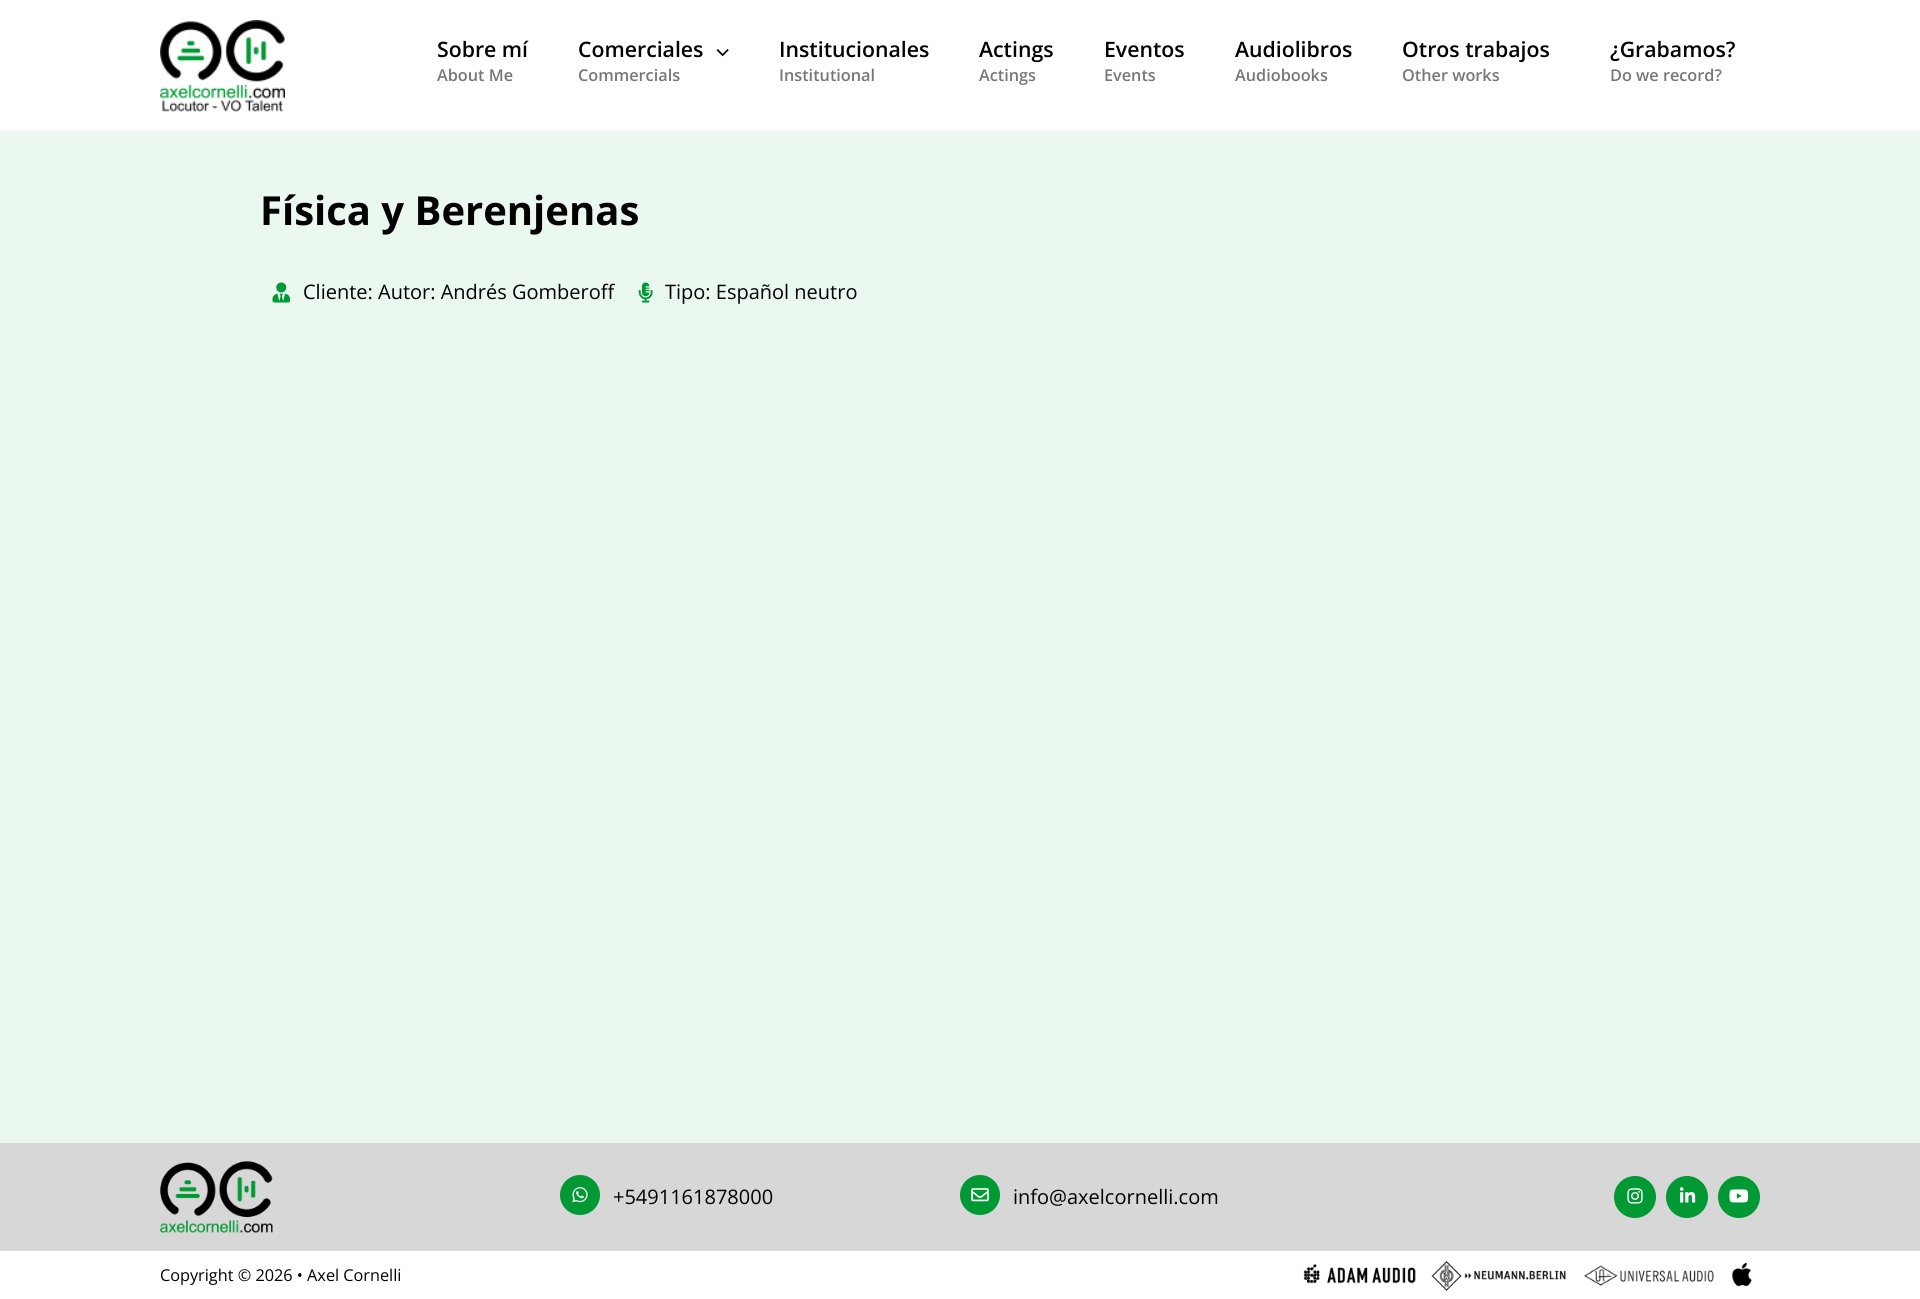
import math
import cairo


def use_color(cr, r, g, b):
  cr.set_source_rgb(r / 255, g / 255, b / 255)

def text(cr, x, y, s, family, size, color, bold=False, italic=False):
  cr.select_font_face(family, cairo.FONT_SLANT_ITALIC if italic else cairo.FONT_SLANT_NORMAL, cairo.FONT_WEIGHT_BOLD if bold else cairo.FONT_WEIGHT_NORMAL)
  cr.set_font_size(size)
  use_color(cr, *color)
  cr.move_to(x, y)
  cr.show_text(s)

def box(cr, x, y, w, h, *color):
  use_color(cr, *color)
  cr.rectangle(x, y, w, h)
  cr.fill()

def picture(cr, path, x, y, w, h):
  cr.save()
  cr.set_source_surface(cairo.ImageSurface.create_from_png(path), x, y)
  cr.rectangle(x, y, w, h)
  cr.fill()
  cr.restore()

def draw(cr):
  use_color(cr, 235, 248, 240)
  cr.paint()
  box(cr, 0, 0, 1920, 131, 255, 255, 255)
  picture(cr, "img_01.png", 160, 20, 125, 92)
  picture(cr, "img_02.png", 716, 49, 13, 8)
  picture(cr, "img_03.png", 272, 282, 18, 21)
  picture(cr, "img_04.png", 638, 282, 15, 21)
  box(cr, 0, 1143, 1920, 108, 215, 215, 215)
  picture(cr, "img_05.png", 160, 1161, 113, 72)
  use_color(cr, 0, 153, 51)
  cr.arc(580, 1195, 20, 0, 2 * math.pi)
  cr.fill()
  picture(cr, "img_06.png", 572, 1187, 16, 16)
  cr.arc(980, 1195, 20, 0, 2 * math.pi)
  cr.fill()
  picture(cr, "img_07.png", 971, 1188, 18, 14)
  cr.arc(1635, 1197, 21, 0, 2 * math.pi)
  cr.fill()
  picture(cr, "img_08.png", 1627, 1188, 16, 16)
  cr.arc(1687, 1197, 21, 0, 2 * math.pi)
  cr.fill()
  picture(cr, "img_09.png", 1679, 1187, 17, 16)
  cr.arc(1739, 1197, 21, 0, 2 * math.pi)
  cr.fill()
  picture(cr, "img_10.png", 1729, 1189, 20, 14)
  box(cr, 0, 1251, 1920, 48, 255, 255, 255)
  picture(cr, "img_11.png", 1303, 1264, 113, 20)
  picture(cr, "img_12.png", 1431, 1260, 135, 31)
  picture(cr, "img_13.png", 1584, 1265, 130, 21)
  picture(cr, "img_14.png", 1731, 1262, 21, 25)
  text(cr, 437, 57, "Sobre mí", "Open Sans SemiBold", 21.25, (1, 1, 1))
  text(cr, 437, 81, "About Me", "Open Sans SemiBold", 16.25, (119, 119, 119))
  text(cr, 578, 57, "Comerciales", "Open Sans SemiBold", 21.25, (1, 1, 1))
  text(cr, 578, 81, "Commercials", "Open Sans SemiBold", 16.25, (119, 119, 119))
  text(cr, 779, 57, "Institucionales", "Open Sans SemiBold", 21.25, (1, 1, 1))
  text(cr, 779, 81, "Institutional", "Open Sans SemiBold", 16.25, (119, 119, 119))
  text(cr, 979, 57, "Actings", "Open Sans SemiBold", 21.25, (1, 1, 1))
  text(cr, 979, 81, "Actings", "Open Sans SemiBold", 16.25, (119, 119, 119))
  text(cr, 1104, 57, "Eventos", "Open Sans SemiBold", 21.25, (1, 1, 1))
  text(cr, 1104, 81, "Events", "Open Sans SemiBold", 16.25, (119, 119, 119))
  text(cr, 1235, 57, "Audiolibros", "Open Sans SemiBold", 21.25, (1, 1, 1))
  text(cr, 1235, 81, "Audiobooks", "Open Sans SemiBold", 16.25, (119, 119, 119))
  text(cr, 1402, 57, "Otros trabajos", "Open Sans SemiBold", 21.25, (1, 1, 1))
  text(cr, 1402, 81, "Other works", "Open Sans SemiBold", 16.25, (119, 119, 119))
  text(cr, 1610, 57, "¿Grabamos?", "Open Sans SemiBold", 21.25, (1, 1, 1))
  text(cr, 1610, 81, "Do we record?", "Open Sans SemiBold", 16.25, (119, 119, 119))
  text(cr, 260, 225, "Física y Berenjenas", "Open Sans", 40, (1, 1, 1), bold=True)
  text(cr, 303, 299, "Cliente: Autor: Andrés Gomberoff", "Open Sans", 20, (1, 1, 1))
  text(cr, 665, 299, "Tipo: Español neutro", "Open Sans", 20, (1, 1, 1))
  text(cr, 613, 1204, "+5491161878000", "Open Sans", 20, (1, 1, 1))
  text(cr, 1013, 1204, "info@axelcornelli.com", "Open Sans", 20, (1, 1, 1))
  text(cr, 160, 1281, "Copyright © 2026 • Axel Cornelli", "Open Sans", 16.25, (1, 1, 1))


surface = cairo.ImageSurface(cairo.FORMAT_RGB24, 1920, 1299)
cr = cairo.Context(surface)
options = cairo.FontOptions()
options.set_hint_metrics(cairo.HINT_METRICS_OFF)
options.set_hint_style(cairo.HINT_STYLE_NONE)
cr.set_font_options(options)
cr.set_miter_limit(4)
draw(cr)
surface.write_to_png("out.png")
